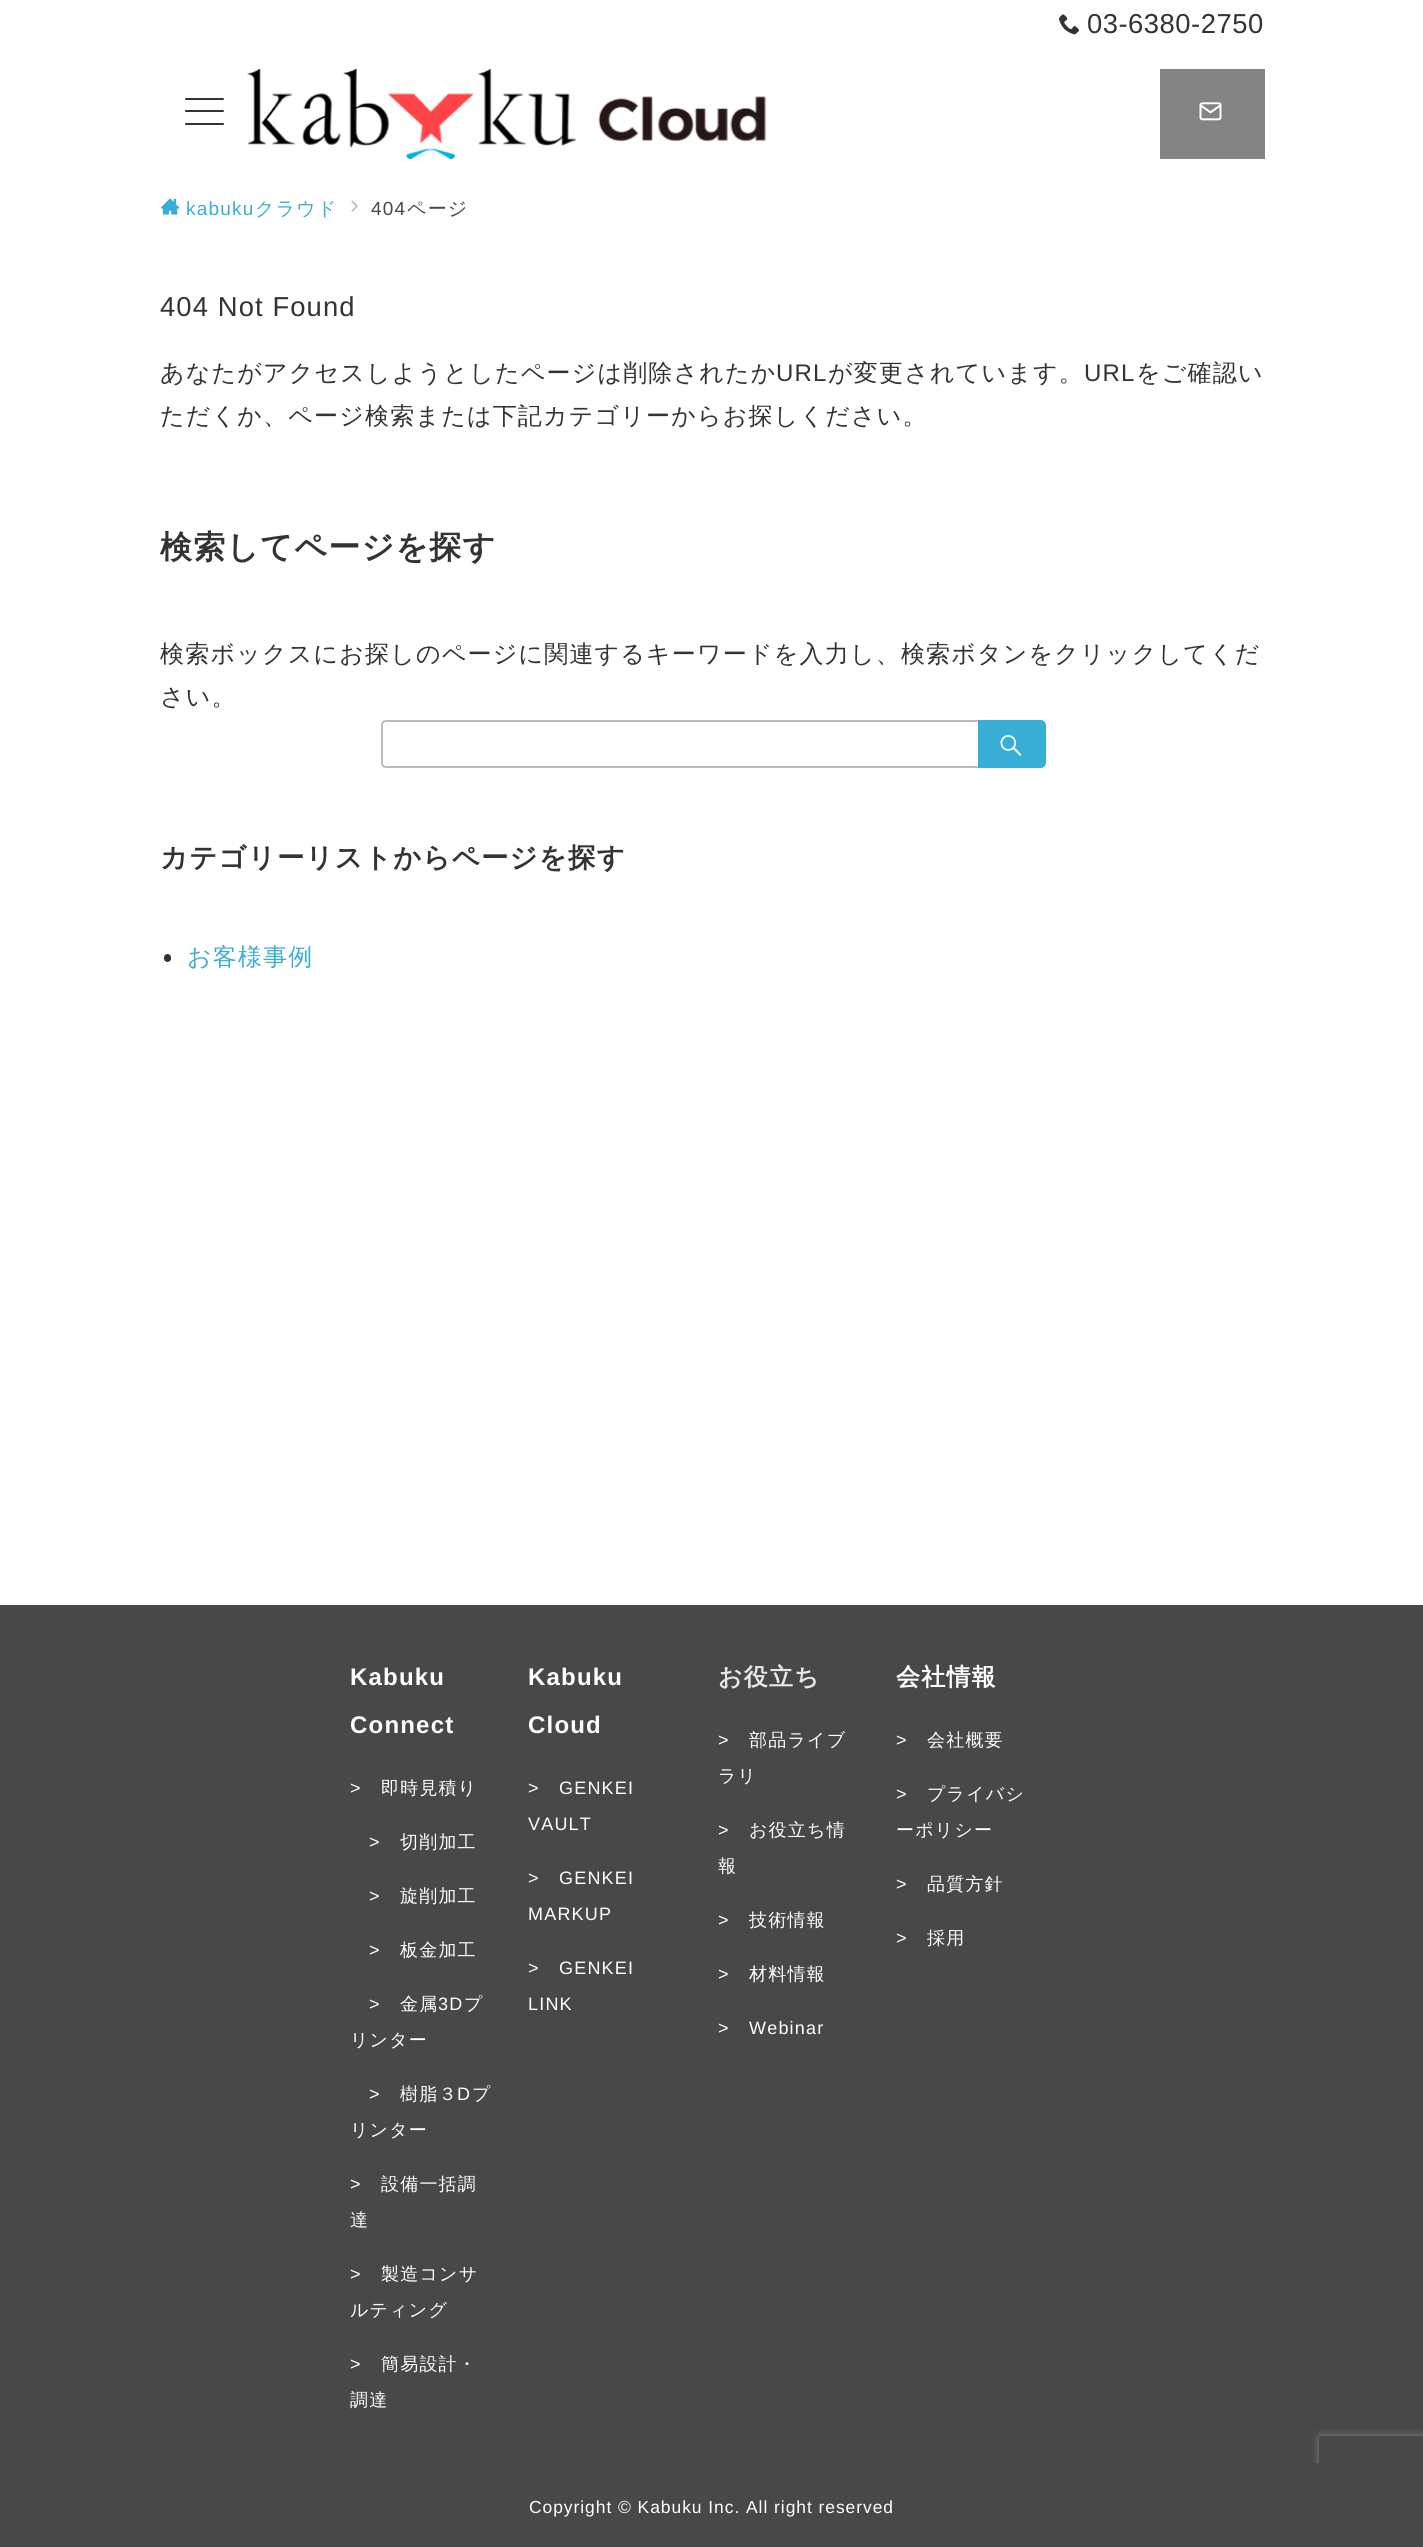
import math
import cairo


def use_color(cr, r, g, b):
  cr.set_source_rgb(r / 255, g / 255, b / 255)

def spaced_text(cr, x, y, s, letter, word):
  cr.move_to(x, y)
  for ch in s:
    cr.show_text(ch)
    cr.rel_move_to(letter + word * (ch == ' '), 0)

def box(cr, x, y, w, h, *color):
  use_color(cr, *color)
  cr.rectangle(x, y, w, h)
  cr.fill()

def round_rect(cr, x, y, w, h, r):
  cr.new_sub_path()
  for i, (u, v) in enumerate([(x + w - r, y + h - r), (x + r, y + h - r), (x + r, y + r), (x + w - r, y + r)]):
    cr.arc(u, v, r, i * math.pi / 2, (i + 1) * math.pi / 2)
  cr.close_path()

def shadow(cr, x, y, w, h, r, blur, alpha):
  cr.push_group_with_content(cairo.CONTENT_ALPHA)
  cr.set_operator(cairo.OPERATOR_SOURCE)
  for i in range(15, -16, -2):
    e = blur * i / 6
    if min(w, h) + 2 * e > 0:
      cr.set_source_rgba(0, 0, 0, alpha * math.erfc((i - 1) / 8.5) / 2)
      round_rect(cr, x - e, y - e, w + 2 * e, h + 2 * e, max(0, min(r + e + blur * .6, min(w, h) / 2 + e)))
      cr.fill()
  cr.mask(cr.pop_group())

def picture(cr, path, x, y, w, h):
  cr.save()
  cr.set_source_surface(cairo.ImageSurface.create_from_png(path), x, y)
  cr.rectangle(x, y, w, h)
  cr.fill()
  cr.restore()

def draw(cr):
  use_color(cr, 255, 255, 255)
  cr.paint()
  picture(cr, "img_01.png", 1059, 14, 20, 21)
  use_color(cr, 51, 51, 51)
  round_rect(cr, 185, 98, 39, 2, 1)
  cr.fill()
  round_rect(cr, 185, 110, 39, 2, 1)
  cr.fill()
  round_rect(cr, 185, 123, 39, 2, 1)
  cr.fill()
  picture(cr, "img_02.png", 247, 69, 520, 90)
  box(cr, 1160, 69, 105, 90, 132, 132, 132)
  picture(cr, "img_03.png", 1199, 102, 23, 19)
  picture(cr, "img_04.png", 161, 198, 19, 17)
  picture(cr, "img_05.png", 351, 200, 7, 12)
  round_rect(cr, 382, 721, 660, 46, 4)
  use_color(cr, 184, 188, 192)
  cr.stroke()
  use_color(cr, 56, 174, 215)
  cr.new_path()
  cr.move_to(979, 721)
  cr.line_to(1041, 721)
  cr.curve_to(1043, 721, 1045, 723, 1045, 725)
  cr.line_to(1045, 763)
  cr.curve_to(1045, 765, 1043, 767, 1041, 767)
  cr.line_to(979, 767)
  cr.close_path()
  cr.fill_preserve()
  cr.stroke()
  picture(cr, "img_06.png", 1000, 735, 22, 21)
  use_color(cr, 51, 51, 51)
  round_rect(cr, 164, 954, 7, 8, 3.5)
  cr.fill()
  box(cr, 0, 1605, 1423, 858, 72, 72, 72)
  cr.save()
  cr.set_fill_rule(cairo.FILL_RULE_EVEN_ODD)
  cr.new_path()
  cr.move_to(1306, 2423)
  cr.line_to(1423, 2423)
  cr.line_to(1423, 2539)
  cr.line_to(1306, 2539)
  cr.close_path()
  cr.move_to(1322, 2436)
  cr.line_to(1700, 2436)
  cr.curve_to(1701.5, 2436, 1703, 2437.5, 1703, 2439)
  cr.line_to(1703, 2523)
  cr.curve_to(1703, 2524.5, 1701.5, 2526, 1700, 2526)
  cr.line_to(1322, 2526)
  cr.curve_to(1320.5, 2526, 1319, 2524.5, 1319, 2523)
  cr.line_to(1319, 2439)
  cr.curve_to(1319, 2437.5, 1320.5, 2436, 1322, 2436)
  cr.close_path()
  cr.clip()
  use_color(cr, 128, 128, 128)
  shadow(cr, 1319, 2436, 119, 90, 3, 4, 1)
  cr.restore()
  box(cr, 0, 2463, 1423, 84, 72, 72, 72)
  cr.select_font_face("Liberation Sans")
  cr.set_font_size(27.4)
  use_color(cr, 51, 51, 51)
  spaced_text(cr, 1087, 33, "03-6380-2750", 0.5, 0)
  cr.set_font_size(19)
  use_color(cr, 56, 174, 215)
  spaced_text(cr, 186, 215, "kabuku", 1.2, 0)
  cr.select_font_face("WenQuanYi Zen Hei Medium")
  spaced_text(cr, 255, 215, "クラウド", 1.2, 0)
  cr.select_font_face("Liberation Sans")
  use_color(cr, 72, 72, 72)
  spaced_text(cr, 371, 215, "404", 1.2, 0)
  cr.select_font_face("WenQuanYi Zen Hei Medium")
  spaced_text(cr, 407, 215, "ページ", 1.2, 0)
  cr.select_font_face("Liberation Sans")
  cr.set_font_size(27.4)
  use_color(cr, 51, 51, 51)
  spaced_text(cr, 160, 316, "404 Not Found", 1.1, 0)
  cr.select_font_face("WenQuanYi Zen Hei Medium")
  cr.set_font_size(24)
  spaced_text(cr, 160, 381, "あなたがアクセスしようとしたページは削除されたか", 1.2, 0)
  cr.select_font_face("Liberation Sans")
  spaced_text(cr, 776, 381, "URL", 1.2, 0)
  cr.select_font_face("WenQuanYi Zen Hei Medium")
  spaced_text(cr, 828, 381, "が変更されています。", 1.2, 0)
  cr.select_font_face("Liberation Sans")
  spaced_text(cr, 1084, 381, "URL", 1.2, 0)
  cr.select_font_face("WenQuanYi Zen Hei Medium")
  spaced_text(cr, 1136, 381, "をご確認い", 1.2, 0)
  spaced_text(cr, 160, 424, "ただくか、ページ検索または下記カテゴリーからお探しください。", 1.2, 0)
  cr.select_font_face("WenQuanYi Zen Hei", cairo.FONT_SLANT_NORMAL, cairo.FONT_WEIGHT_BOLD)
  cr.set_font_size(32)
  spaced_text(cr, 160, 558, "検索してページを探す", 1.2, 0)
  cr.select_font_face("WenQuanYi Zen Hei Medium")
  cr.set_font_size(24)
  spaced_text(cr, 160, 662, "検索ボックスにお探しのページに関連するキーワードを入力し、検索ボタンをクリックしてくだ", 1.2, 0)
  spaced_text(cr, 160, 705, "さい。", 1.2, 0)
  cr.select_font_face("WenQuanYi Zen Hei", cairo.FONT_SLANT_NORMAL, cairo.FONT_WEIGHT_BOLD)
  cr.set_font_size(27.4)
  spaced_text(cr, 160, 867, "カテゴリーリストからページを探す", 1.2, 0)
  cr.select_font_face("WenQuanYi Zen Hei Medium")
  cr.set_font_size(24)
  use_color(cr, 56, 174, 215)
  spaced_text(cr, 187, 965, "お客様事例", 1.2, 0)
  cr.select_font_face("Liberation Sans", cairo.FONT_SLANT_NORMAL, cairo.FONT_WEIGHT_BOLD)
  use_color(cr, 255, 255, 255)
  spaced_text(cr, 350, 1685, "Kabuku", 1.2, 0)
  spaced_text(cr, 350, 1733, "Connect", 1.2, 0)
  cr.select_font_face("Liberation Sans")
  cr.set_font_size(18)
  spaced_text(cr, 350, 1794, ">", 1.2, 0)
  cr.select_font_face("WenQuanYi Zen Hei Medium")
  spaced_text(cr, 381, 1794, "即時見積り", 1.2, 0)
  cr.select_font_face("Liberation Sans")
  spaced_text(cr, 369, 1848, ">", 1.2, 0)
  cr.select_font_face("WenQuanYi Zen Hei Medium")
  spaced_text(cr, 400, 1848, "切削加工", 1.2, 0)
  cr.select_font_face("Liberation Sans")
  spaced_text(cr, 369, 1902, ">", 1.2, 0)
  cr.select_font_face("WenQuanYi Zen Hei Medium")
  spaced_text(cr, 400, 1902, "旋削加工", 1.2, 0)
  cr.select_font_face("Liberation Sans")
  spaced_text(cr, 369, 1956, ">", 1.2, 0)
  cr.select_font_face("WenQuanYi Zen Hei Medium")
  spaced_text(cr, 400, 1956, "板金加工", 1.2, 0)
  cr.select_font_face("Liberation Sans")
  spaced_text(cr, 369, 2010, ">", 1.2, 0)
  cr.select_font_face("WenQuanYi Zen Hei Medium")
  spaced_text(cr, 400, 2010, "金属", 1.2, 0)
  cr.select_font_face("Liberation Sans")
  spaced_text(cr, 438, 2010, "3D", 1.2, 0)
  cr.select_font_face("WenQuanYi Zen Hei Medium")
  spaced_text(cr, 464, 2010, "プ", 1.2, 0)
  spaced_text(cr, 350, 2046, "リンター", 1.2, 0)
  cr.select_font_face("Liberation Sans")
  spaced_text(cr, 369, 2100, ">", 1.2, 0)
  cr.select_font_face("WenQuanYi Zen Hei Medium")
  spaced_text(cr, 400, 2100, "樹脂３", 1.2, 0)
  cr.select_font_face("Liberation Sans")
  spaced_text(cr, 457, 2100, "D", 1.2, 0)
  cr.select_font_face("WenQuanYi Zen Hei Medium")
  spaced_text(cr, 472, 2100, "プ", 1.2, 0)
  spaced_text(cr, 350, 2136, "リンター", 1.2, 0)
  cr.select_font_face("Liberation Sans")
  spaced_text(cr, 350, 2190, ">", 1.2, 0)
  cr.select_font_face("WenQuanYi Zen Hei Medium")
  spaced_text(cr, 381, 2190, "設備一括調", 1.2, 0)
  spaced_text(cr, 350, 2226, "達", 1.2, 0)
  cr.select_font_face("Liberation Sans")
  spaced_text(cr, 350, 2280, ">", 1.2, 0)
  cr.select_font_face("WenQuanYi Zen Hei Medium")
  spaced_text(cr, 381, 2280, "製造コンサ", 1.2, 0)
  spaced_text(cr, 350, 2316, "ルティング", 1.2, 0)
  cr.select_font_face("Liberation Sans")
  spaced_text(cr, 350, 2370, ">", 1.2, 0)
  cr.select_font_face("WenQuanYi Zen Hei Medium")
  spaced_text(cr, 381, 2370, "簡易設計・", 1.2, 0)
  spaced_text(cr, 350, 2406, "調達", 1.2, 0)
  cr.select_font_face("Liberation Sans", cairo.FONT_SLANT_NORMAL, cairo.FONT_WEIGHT_BOLD)
  cr.set_font_size(24)
  spaced_text(cr, 528, 1685, "Kabuku", 1.2, 0)
  spaced_text(cr, 528, 1733, "Cloud", 1.2, 0)
  cr.select_font_face("Liberation Sans")
  cr.set_font_size(18)
  spaced_text(cr, 528, 1794, ">", 1.2, 0)
  spaced_text(cr, 559, 1794, "GENKEI", 1.2, 0)
  spaced_text(cr, 528, 1830, "VAULT", 1.2, 0)
  spaced_text(cr, 528, 1884, ">", 1.2, 0)
  spaced_text(cr, 559, 1884, "GENKEI", 1.2, 0)
  spaced_text(cr, 528, 1920, "MARKUP", 1.2, 0)
  spaced_text(cr, 528, 1974, ">", 1.2, 0)
  spaced_text(cr, 559, 1974, "GENKEI", 1.2, 0)
  spaced_text(cr, 528, 2010, "LINK", 1.2, 0)
  cr.select_font_face("WenQuanYi Zen Hei", cairo.FONT_SLANT_NORMAL, cairo.FONT_WEIGHT_BOLD)
  cr.set_font_size(24)
  use_color(cr, 229, 231, 232)
  spaced_text(cr, 718, 1685, "お役立ち", 1.2, 0)
  cr.select_font_face("Liberation Sans")
  cr.set_font_size(18)
  use_color(cr, 255, 255, 255)
  spaced_text(cr, 718, 1746, ">", 1.2, 0)
  cr.select_font_face("WenQuanYi Zen Hei Medium")
  spaced_text(cr, 749, 1746, "部品ライブ", 1.2, 0)
  spaced_text(cr, 718, 1782, "ラリ", 1.2, 0)
  cr.select_font_face("Liberation Sans")
  spaced_text(cr, 718, 1836, ">", 1.2, 0)
  cr.select_font_face("WenQuanYi Zen Hei Medium")
  spaced_text(cr, 749, 1836, "お役立ち情", 1.2, 0)
  spaced_text(cr, 718, 1872, "報", 1.2, 0)
  cr.select_font_face("Liberation Sans")
  spaced_text(cr, 718, 1926, ">", 1.2, 0)
  cr.select_font_face("WenQuanYi Zen Hei Medium")
  spaced_text(cr, 749, 1926, "技術情報", 1.2, 0)
  cr.select_font_face("Liberation Sans")
  spaced_text(cr, 718, 1980, ">", 1.2, 0)
  cr.select_font_face("WenQuanYi Zen Hei Medium")
  spaced_text(cr, 749, 1980, "材料情報", 1.2, 0)
  cr.select_font_face("Liberation Sans")
  spaced_text(cr, 718, 2034, ">", 1.2, 0)
  spaced_text(cr, 749, 2034, "Webinar", 1.2, 0)
  cr.select_font_face("WenQuanYi Zen Hei", cairo.FONT_SLANT_NORMAL, cairo.FONT_WEIGHT_BOLD)
  cr.set_font_size(24)
  spaced_text(cr, 896, 1685, "会社情報", 1.2, 0)
  cr.select_font_face("Liberation Sans")
  cr.set_font_size(18)
  spaced_text(cr, 896, 1746, ">", 1.2, 0)
  cr.select_font_face("WenQuanYi Zen Hei Medium")
  spaced_text(cr, 927, 1746, "会社概要", 1.2, 0)
  cr.select_font_face("Liberation Sans")
  spaced_text(cr, 896, 1800, ">", 1.2, 0)
  cr.select_font_face("WenQuanYi Zen Hei Medium")
  spaced_text(cr, 927, 1800, "プライバシ", 1.2, 0)
  spaced_text(cr, 896, 1836, "ーポリシー", 1.2, 0)
  cr.select_font_face("Liberation Sans")
  spaced_text(cr, 896, 1890, ">", 1.2, 0)
  cr.select_font_face("WenQuanYi Zen Hei Medium")
  spaced_text(cr, 927, 1890, "品質方針", 1.2, 0)
  cr.select_font_face("Liberation Sans")
  spaced_text(cr, 896, 1944, ">", 1.2, 0)
  cr.select_font_face("WenQuanYi Zen Hei Medium")
  spaced_text(cr, 927, 1944, "採用", 1.2, 0)
  cr.select_font_face("Liberation Sans")
  cr.set_font_size(17.45)
  spaced_text(cr, 529, 2513, "Copyright © Kabuku Inc. All right reserved", 0.95, 0)


surface = cairo.ImageSurface(cairo.FORMAT_RGB24, 1423, 2547)
cr = cairo.Context(surface)
options = cairo.FontOptions()
options.set_hint_metrics(cairo.HINT_METRICS_OFF)
options.set_hint_style(cairo.HINT_STYLE_NONE)
cr.set_font_options(options)
cr.set_miter_limit(4)
draw(cr)
surface.write_to_png("out.png")
